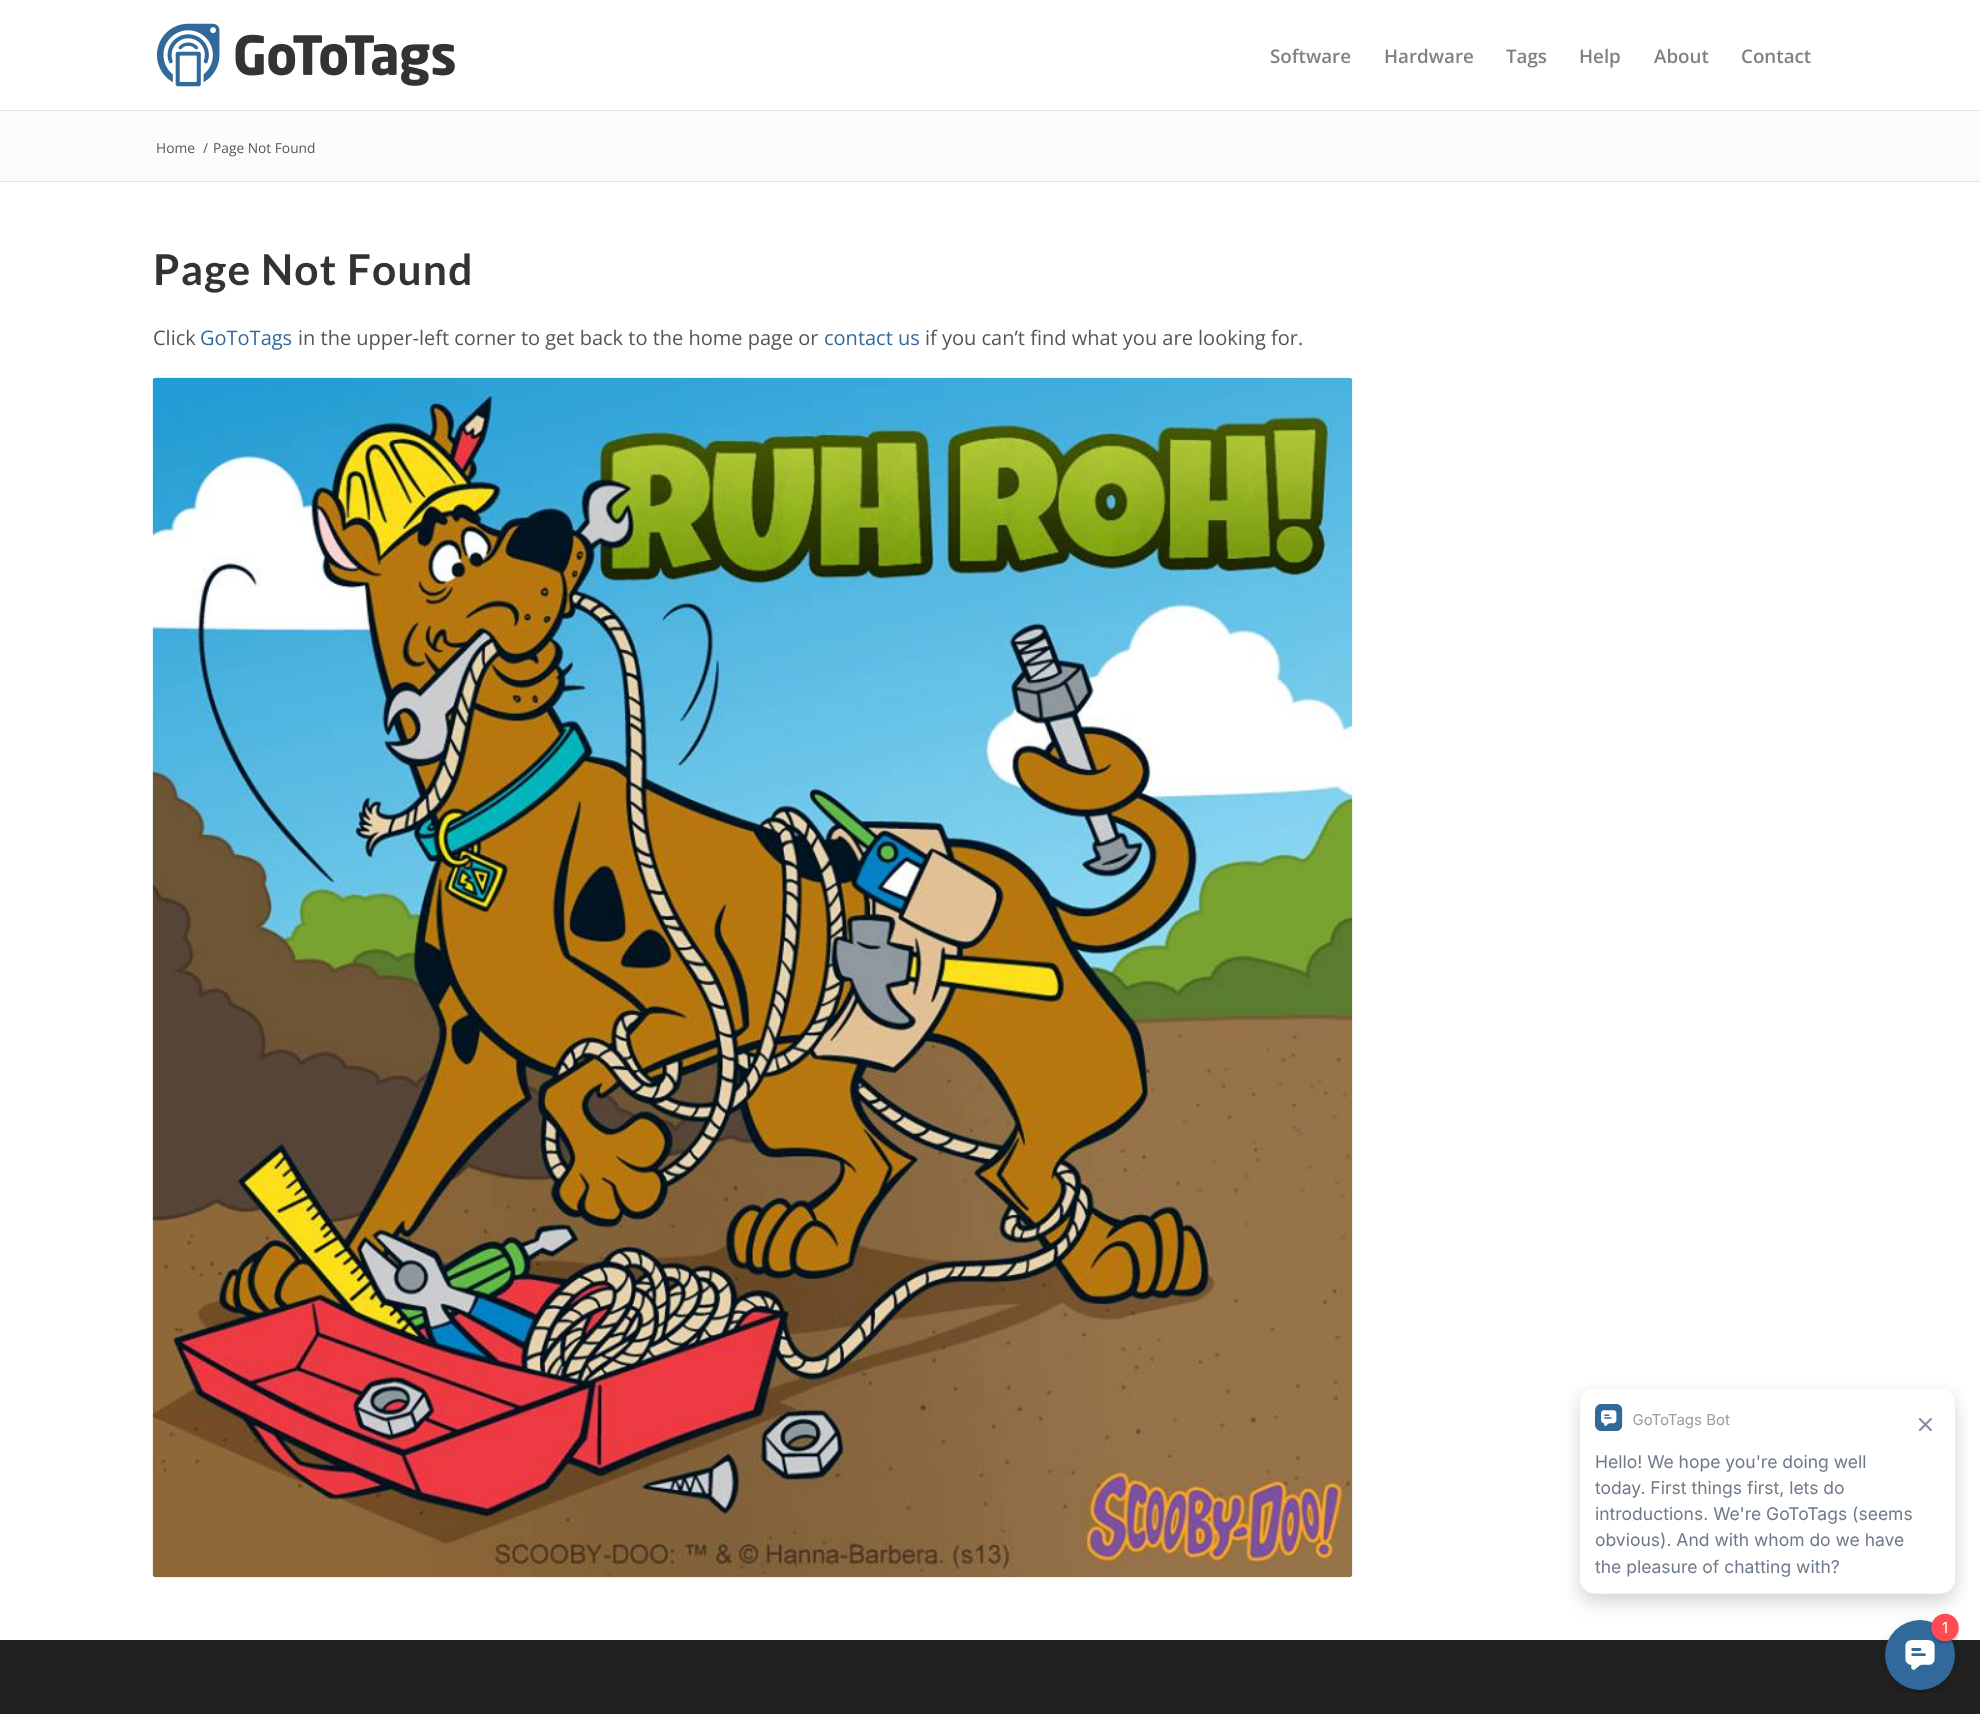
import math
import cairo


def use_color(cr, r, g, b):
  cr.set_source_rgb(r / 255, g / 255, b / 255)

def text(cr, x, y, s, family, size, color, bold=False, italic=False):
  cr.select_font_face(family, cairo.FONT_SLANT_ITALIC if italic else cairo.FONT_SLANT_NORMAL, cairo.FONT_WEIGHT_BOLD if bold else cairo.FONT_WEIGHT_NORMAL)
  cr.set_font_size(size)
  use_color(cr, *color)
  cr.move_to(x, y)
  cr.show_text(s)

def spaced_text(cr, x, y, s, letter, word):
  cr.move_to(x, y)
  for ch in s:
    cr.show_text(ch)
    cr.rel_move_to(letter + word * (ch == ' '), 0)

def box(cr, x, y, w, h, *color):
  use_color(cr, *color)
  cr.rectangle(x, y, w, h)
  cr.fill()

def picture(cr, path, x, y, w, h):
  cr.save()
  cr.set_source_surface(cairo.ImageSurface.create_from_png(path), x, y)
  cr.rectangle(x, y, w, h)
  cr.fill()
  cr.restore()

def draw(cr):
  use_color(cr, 255, 255, 255)
  cr.paint()
  box(cr, 0, 110, 1980, 1, 225, 225, 225)
  picture(cr, "img_01.png", 156, 23, 299, 64)
  box(cr, 0, 111, 1980, 70, 252, 252, 252)
  box(cr, 0, 181, 1980, 1, 225, 225, 225)
  picture(cr, "img_02.png", 152, 377, 1201, 1201)
  box(cr, 0, 1640, 1980, 74, 34, 34, 34)
  picture(cr, "img_03.png", 1567, 1383, 401, 311)
  text(cr, 1270, 63, "Software", "Open Sans SemiBold", 18.75, (128, 128, 128))
  text(cr, 1384, 63, "Hardware", "Open Sans SemiBold", 18.75, (128, 128, 128))
  text(cr, 1506, 63, "Tags", "Open Sans SemiBold", 18.75, (128, 128, 128))
  text(cr, 1579, 63, "Help", "Open Sans SemiBold", 18.75, (128, 128, 128))
  text(cr, 1654, 63, "About", "Open Sans SemiBold", 18.75, (128, 128, 128))
  text(cr, 1741, 63, "Contact", "Open Sans SemiBold", 18.75, (128, 128, 128))
  text(cr, 156, 153, "Home", "Open Sans", 13.75, (85, 85, 85))
  text(cr, 203, 153, "/", "Open Sans", 13.75, (85, 85, 85))
  text(cr, 213, 153, "Page Not Found", "Open Sans", 13.75, (85, 85, 85))
  cr.select_font_face("Lato", cairo.FONT_SLANT_NORMAL, cairo.FONT_WEIGHT_BOLD)
  cr.set_font_size(42.5)
  use_color(cr, 51, 51, 51)
  spaced_text(cr, 153, 285, "Page Not Found", 1.25, 0)
  text(cr, 153, 345, "Click", "Open Sans", 20, (85, 85, 85))
  text(cr, 200, 345, "GoToTags", "Open Sans", 20, (50, 104, 155))
  text(cr, 298, 345, "in the upper-left corner to get back to the home page or", "Open Sans", 20, (85, 85, 85))
  text(cr, 824, 345, "contact us", "Open Sans", 20, (50, 104, 155))
  text(cr, 925, 345, "if you can’t find what you are looking for.", "Open Sans", 20, (85, 85, 85))


surface = cairo.ImageSurface(cairo.FORMAT_RGB24, 1980, 1714)
cr = cairo.Context(surface)
options = cairo.FontOptions()
options.set_hint_metrics(cairo.HINT_METRICS_OFF)
options.set_hint_style(cairo.HINT_STYLE_NONE)
cr.set_font_options(options)
cr.set_miter_limit(4)
draw(cr)
surface.write_to_png("out.png")
